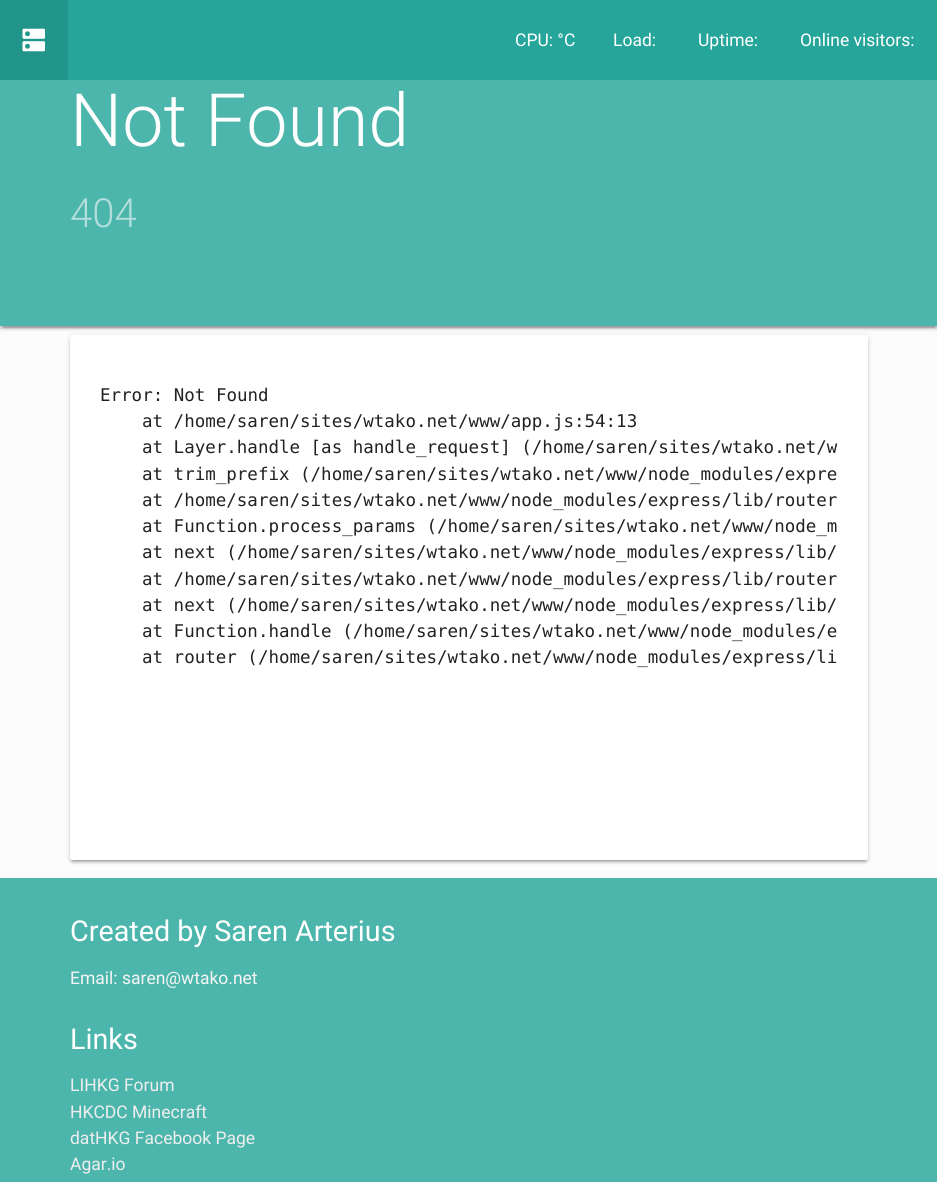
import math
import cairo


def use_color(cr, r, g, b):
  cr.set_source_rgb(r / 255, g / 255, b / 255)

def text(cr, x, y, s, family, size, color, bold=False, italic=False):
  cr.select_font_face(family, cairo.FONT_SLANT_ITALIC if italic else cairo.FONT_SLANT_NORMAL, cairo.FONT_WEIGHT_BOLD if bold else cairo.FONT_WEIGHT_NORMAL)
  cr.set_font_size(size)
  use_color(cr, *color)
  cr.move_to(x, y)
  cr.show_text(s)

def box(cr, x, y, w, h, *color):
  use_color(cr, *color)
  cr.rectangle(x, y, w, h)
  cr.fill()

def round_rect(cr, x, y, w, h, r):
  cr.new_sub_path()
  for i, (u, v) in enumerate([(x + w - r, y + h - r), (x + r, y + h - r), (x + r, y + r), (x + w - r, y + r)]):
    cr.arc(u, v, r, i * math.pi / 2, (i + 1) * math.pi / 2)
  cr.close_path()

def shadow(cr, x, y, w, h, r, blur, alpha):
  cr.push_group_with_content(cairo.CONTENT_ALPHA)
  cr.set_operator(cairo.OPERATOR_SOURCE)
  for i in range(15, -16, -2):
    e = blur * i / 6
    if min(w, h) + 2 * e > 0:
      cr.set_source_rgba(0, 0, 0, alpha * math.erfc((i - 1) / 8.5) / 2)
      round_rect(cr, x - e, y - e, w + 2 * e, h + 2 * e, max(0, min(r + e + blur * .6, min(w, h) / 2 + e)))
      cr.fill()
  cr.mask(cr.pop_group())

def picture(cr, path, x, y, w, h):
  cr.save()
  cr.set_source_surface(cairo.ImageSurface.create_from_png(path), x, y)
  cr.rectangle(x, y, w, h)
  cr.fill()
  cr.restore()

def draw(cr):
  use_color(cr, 252, 252, 252)
  cr.paint()
  use_color(cr, 0, 0, 0)
  shadow(cr, 3, 11, 932, 317, 0, 0.5, 0.2)
  shadow(cr, 0, 6, 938, 322, 0, 3, 0.12)
  shadow(cr, 0, 8, 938, 321, 0, 1, 0.14)
  box(cr, 68, 0, 869, 80, 38, 166, 154)
  box(cr, 0, 0, 68, 80, 34, 149, 139)
  picture(cr, "img_01.png", 22, 28, 23, 24)
  box(cr, 0, 80, 937, 246, 77, 182, 172)
  use_color(cr, 0, 0, 0)
  shadow(cr, 73, 341, 792, 520, 0, 0.5, 0.2)
  shadow(cr, 70, 336, 798, 525, 2.5, 3, 0.12)
  shadow(cr, 70, 338, 798, 525, 2.5, 1, 0.14)
  use_color(cr, 255, 255, 255)
  round_rect(cr, 70, 335, 798, 525, 2.5)
  cr.fill()
  box(cr, 0, 878, 937, 304, 77, 182, 172)
  text(cr, 515, 46, "CPU: °C", "Roboto", 17.5, (255, 255, 255))
  text(cr, 613, 46, "Load:", "Roboto", 17.5, (255, 255, 255))
  text(cr, 698, 46, "Uptime:", "Roboto", 17.5, (255, 255, 255))
  text(cr, 800, 46, "Online visitors:", "Roboto", 17.5, (255, 255, 255))
  text(cr, 70, 146, "Not Found", "Roboto Light", 73.5, (255, 255, 255))
  text(cr, 70, 227, "404", "Roboto Light", 40, (178, 223, 219))
  text(cr, 100, 401, "Error: Not Found", "DejaVu Sans Mono", 17.5, (33, 33, 33))
  text(cr, 142, 427, "at /home/saren/sites/wtako.net/www/app.js:54:13", "DejaVu Sans Mono", 17.5, (33, 33, 33))
  text(cr, 142, 453, "at Layer.handle [as handle_request] (/home/saren/sites/wtako.net/w", "DejaVu Sans Mono", 17.5, (33, 33, 33))
  text(cr, 142, 480, "at trim_prefix (/home/saren/sites/wtako.net/www/node_modules/expre", "DejaVu Sans Mono", 17.5, (33, 33, 33))
  text(cr, 142, 506, "at /home/saren/sites/wtako.net/www/node_modules/express/lib/router", "DejaVu Sans Mono", 17.5, (33, 33, 33))
  text(cr, 142, 532, "at Function.process_params (/home/saren/sites/wtako.net/www/node_m", "DejaVu Sans Mono", 17.5, (33, 33, 33))
  text(cr, 142, 558, "at next (/home/saren/sites/wtako.net/www/node_modules/express/lib/", "DejaVu Sans Mono", 17.5, (33, 33, 33))
  text(cr, 142, 585, "at /home/saren/sites/wtako.net/www/node_modules/express/lib/router", "DejaVu Sans Mono", 17.5, (33, 33, 33))
  text(cr, 142, 611, "at next (/home/saren/sites/wtako.net/www/node_modules/express/lib/", "DejaVu Sans Mono", 17.5, (33, 33, 33))
  text(cr, 142, 637, "at Function.handle (/home/saren/sites/wtako.net/www/node_modules/e", "DejaVu Sans Mono", 17.5, (33, 33, 33))
  text(cr, 142, 663, "at router (/home/saren/sites/wtako.net/www/node_modules/express/li", "DejaVu Sans Mono", 17.5, (33, 33, 33))
  text(cr, 70, 941, "Created by Saren Arterius", "Roboto", 28.75, (255, 255, 255))
  text(cr, 70, 984, "Email: saren@wtako.net", "Roboto", 17.5, (245, 245, 245))
  text(cr, 70, 1049, "Links", "Roboto", 28.75, (255, 255, 255))
  text(cr, 70, 1091, "LIHKG Forum", "Roboto", 17.5, (238, 238, 238))
  text(cr, 70, 1118, "HKCDC Minecraft", "Roboto", 17.5, (238, 238, 238))
  text(cr, 70, 1144, "datHKG Facebook Page", "Roboto", 17.5, (238, 238, 238))
  text(cr, 70, 1170, "Agar.io", "Roboto", 17.5, (238, 238, 238))


surface = cairo.ImageSurface(cairo.FORMAT_RGB24, 937, 1182)
cr = cairo.Context(surface)
options = cairo.FontOptions()
options.set_hint_metrics(cairo.HINT_METRICS_OFF)
options.set_hint_style(cairo.HINT_STYLE_NONE)
cr.set_font_options(options)
cr.set_miter_limit(4)
draw(cr)
surface.write_to_png("out.png")
